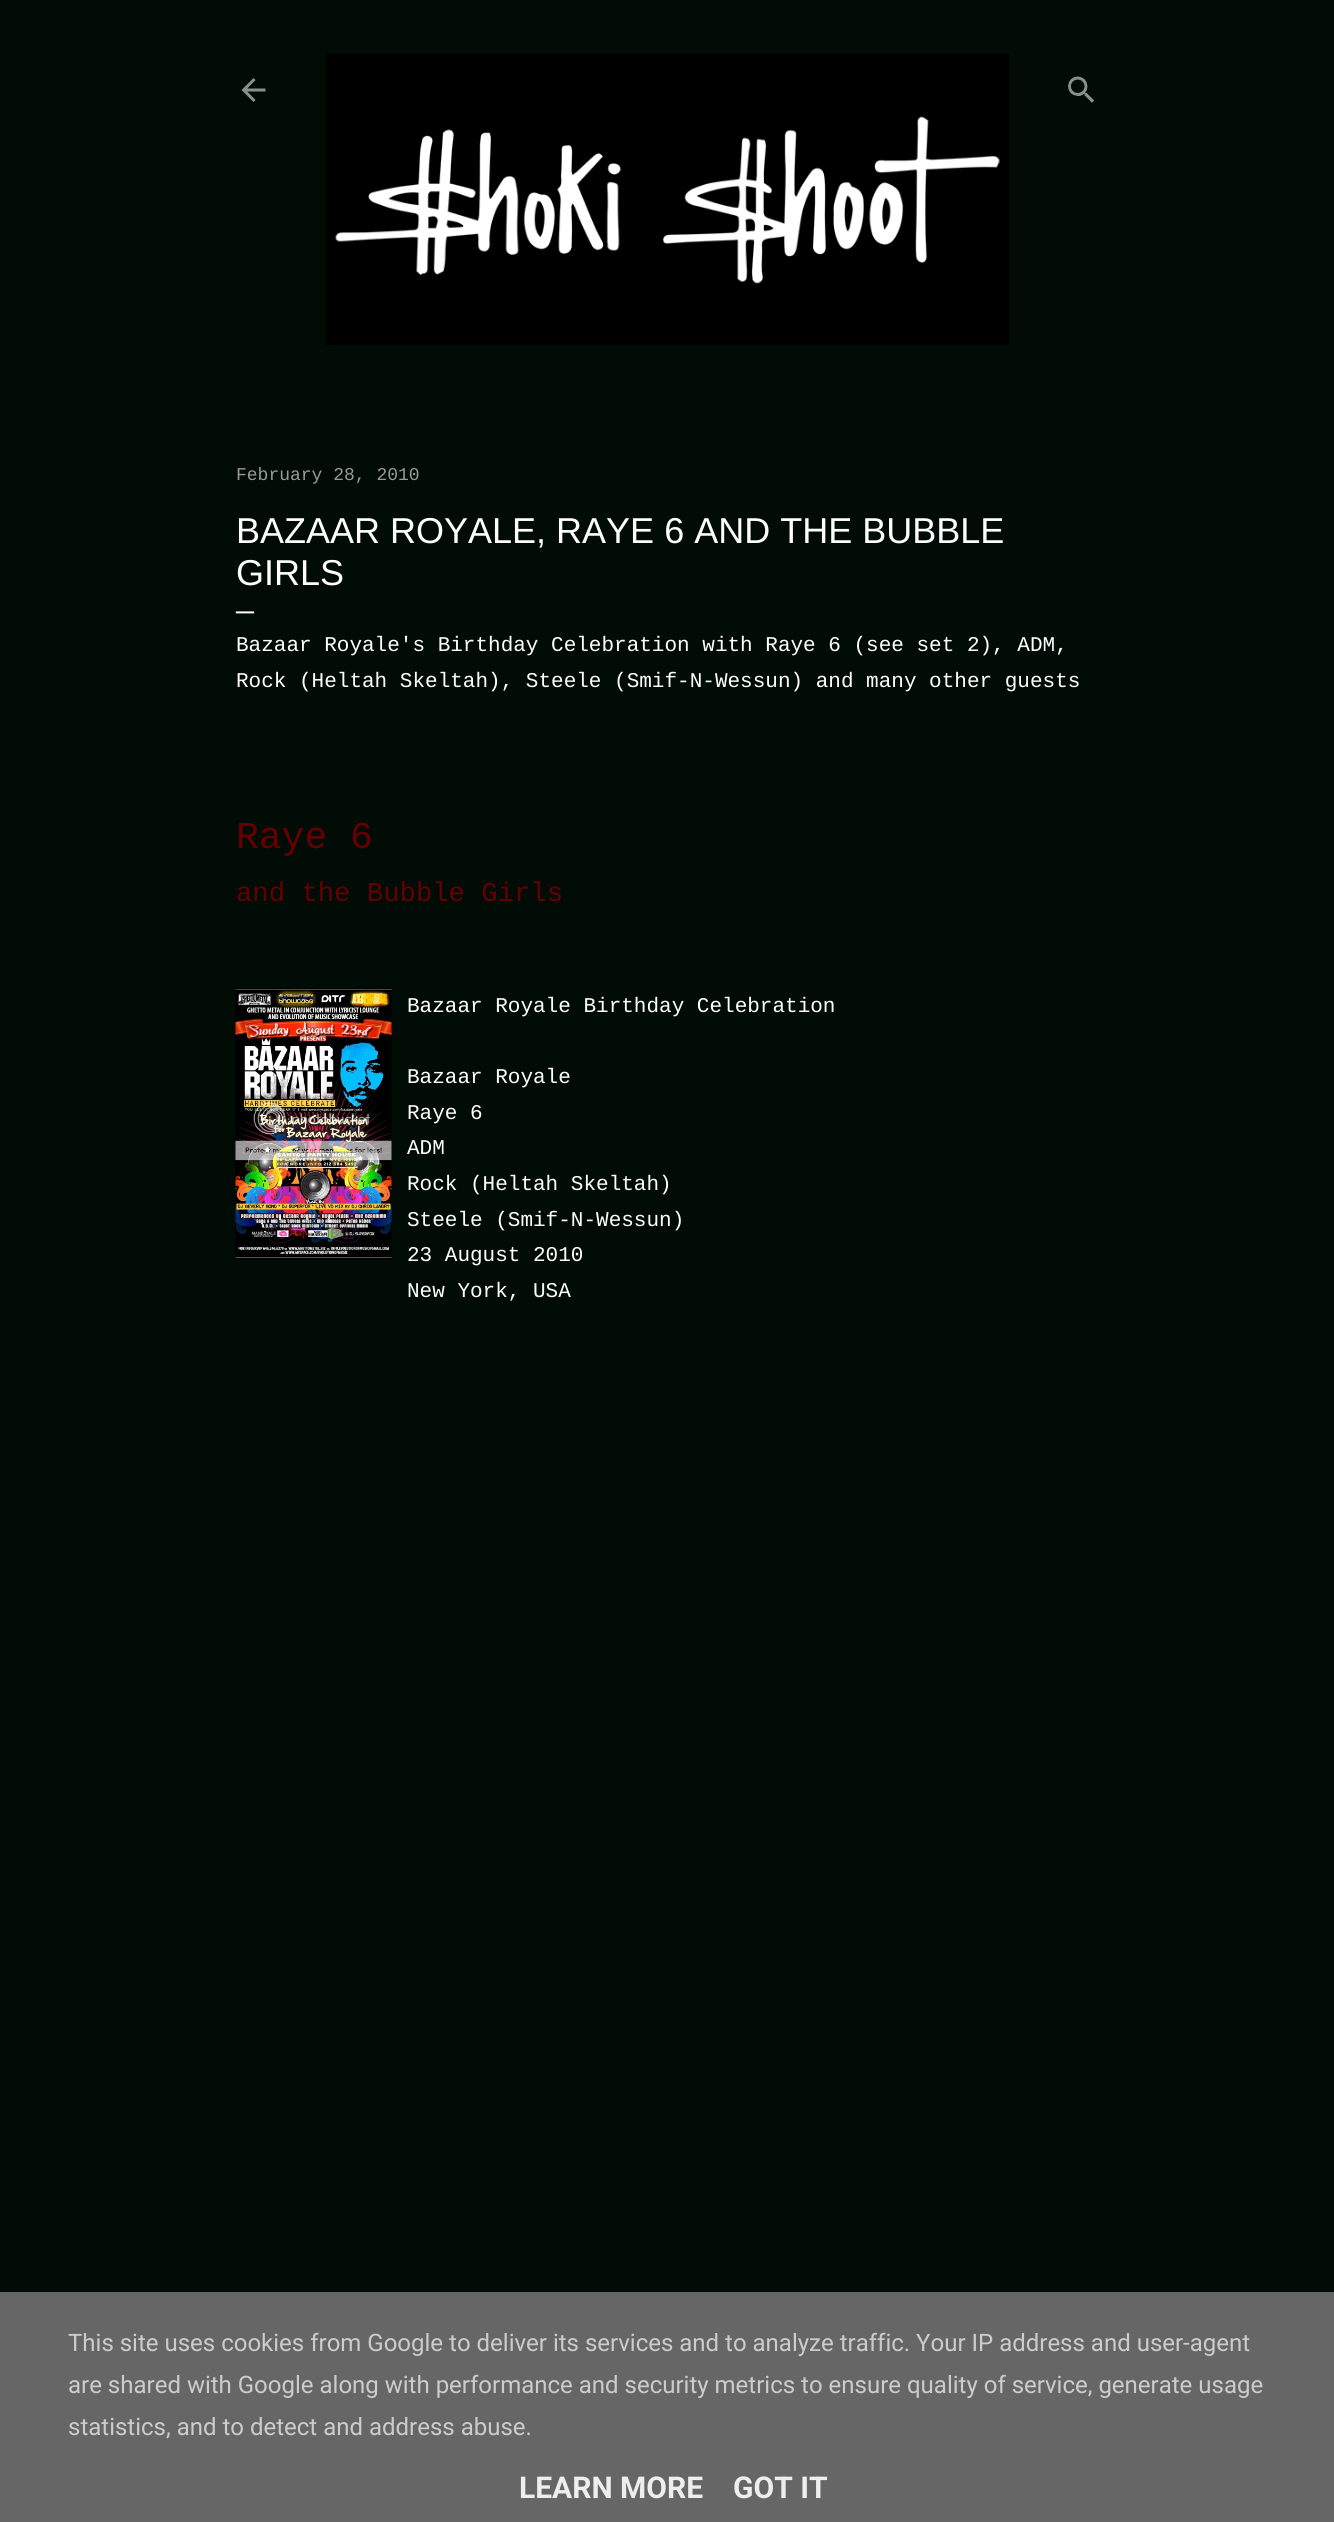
import math
import cairo


def use_color(cr, r, g, b):
  cr.set_source_rgb(r / 255, g / 255, b / 255)

def text(cr, x, y, s, family, size, color, bold=False, italic=False):
  cr.select_font_face(family, cairo.FONT_SLANT_ITALIC if italic else cairo.FONT_SLANT_NORMAL, cairo.FONT_WEIGHT_BOLD if bold else cairo.FONT_WEIGHT_NORMAL)
  cr.set_font_size(size)
  use_color(cr, *color)
  cr.move_to(x, y)
  cr.show_text(s)

def box(cr, x, y, w, h, *color):
  use_color(cr, *color)
  cr.rectangle(x, y, w, h)
  cr.fill()

def picture(cr, path, x, y, w, h):
  cr.save()
  cr.set_source_surface(cairo.ImageSurface.create_from_png(path), x, y)
  cr.rectangle(x, y, w, h)
  cr.fill()
  cr.restore()

def draw(cr):
  use_color(cr, 1, 12, 7)
  cr.paint()
  picture(cr, "img_01.png", 241, 78, 25, 24)
  picture(cr, "img_02.png", 326, 54, 683, 291)
  picture(cr, "img_03.png", 1068, 76, 27, 27)
  picture(cr, "img_04.png", 235, 988, 157, 272)
  box(cr, 0, 2292, 1334, 230, 102, 102, 102)
  text(cr, 236, 480, "February 28, 2010", "Liberation Mono", 18, (153, 153, 153))
  text(cr, 236, 543, "BAZAAR ROYALE, RAYE 6 AND THE BUBBLE", "Liberation Sans", 36, (255, 255, 255))
  text(cr, 236, 585, "GIRLS", "Liberation Sans", 36, (255, 255, 255))
  text(cr, 236, 620, "—", "Liberation Mono", 30, (255, 255, 255))
  text(cr, 236, 651, "Bazaar Royale's Birthday Celebration with Raye 6 (see set 2), ADM,", "Liberation Mono", 21, (255, 255, 255))
  text(cr, 236, 687, "Rock (Heltah Skeltah), Steele (Smif-N-Wessun) and many other guests", "Liberation Mono", 21, (255, 255, 255))
  text(cr, 236, 848, "Raye 6", "Liberation Mono", 38, (102, 0, 0))
  text(cr, 236, 901, "and the Bubble Girls", "Liberation Mono", 27.25, (102, 0, 0))
  text(cr, 407, 1012, "Bazaar Royale Birthday Celebration", "Liberation Mono", 21, (255, 255, 255))
  text(cr, 407, 1083, "Bazaar Royale", "Liberation Mono", 21, (255, 255, 255))
  text(cr, 407, 1119, "Raye 6", "Liberation Mono", 21, (255, 255, 255))
  text(cr, 407, 1154, "ADM", "Liberation Mono", 21, (255, 255, 255))
  text(cr, 407, 1190, "Rock (Heltah Skeltah)", "Liberation Mono", 21, (255, 255, 255))
  text(cr, 407, 1226, "Steele (Smif-N-Wessun)", "Liberation Mono", 21, (255, 255, 255))
  text(cr, 407, 1261, "23 August 2010", "Liberation Mono", 21, (255, 255, 255))
  text(cr, 407, 1297, "New York, USA", "Liberation Mono", 21, (255, 255, 255))
  text(cr, 68, 2351, "This site uses cookies from Google to deliver its services and to analyze traffic. Your IP address and user-agent", "Roboto", 24, (204, 204, 204))
  text(cr, 68, 2393, "are shared with Google along with performance and security metrics to ensure quality of service, generate usage", "Roboto", 24, (204, 204, 204))
  text(cr, 68, 2435, "statistics, and to detect and address abuse.", "Roboto", 24, (204, 204, 204))
  text(cr, 519, 2498, "LEARN MORE", "Roboto", 30, (238, 238, 238), bold=True)
  text(cr, 733, 2498, "GOT IT", "Roboto", 30, (238, 238, 238), bold=True)


surface = cairo.ImageSurface(cairo.FORMAT_RGB24, 1334, 2522)
cr = cairo.Context(surface)
options = cairo.FontOptions()
options.set_hint_metrics(cairo.HINT_METRICS_OFF)
options.set_hint_style(cairo.HINT_STYLE_NONE)
cr.set_font_options(options)
cr.set_miter_limit(4)
draw(cr)
surface.write_to_png("out.png")
